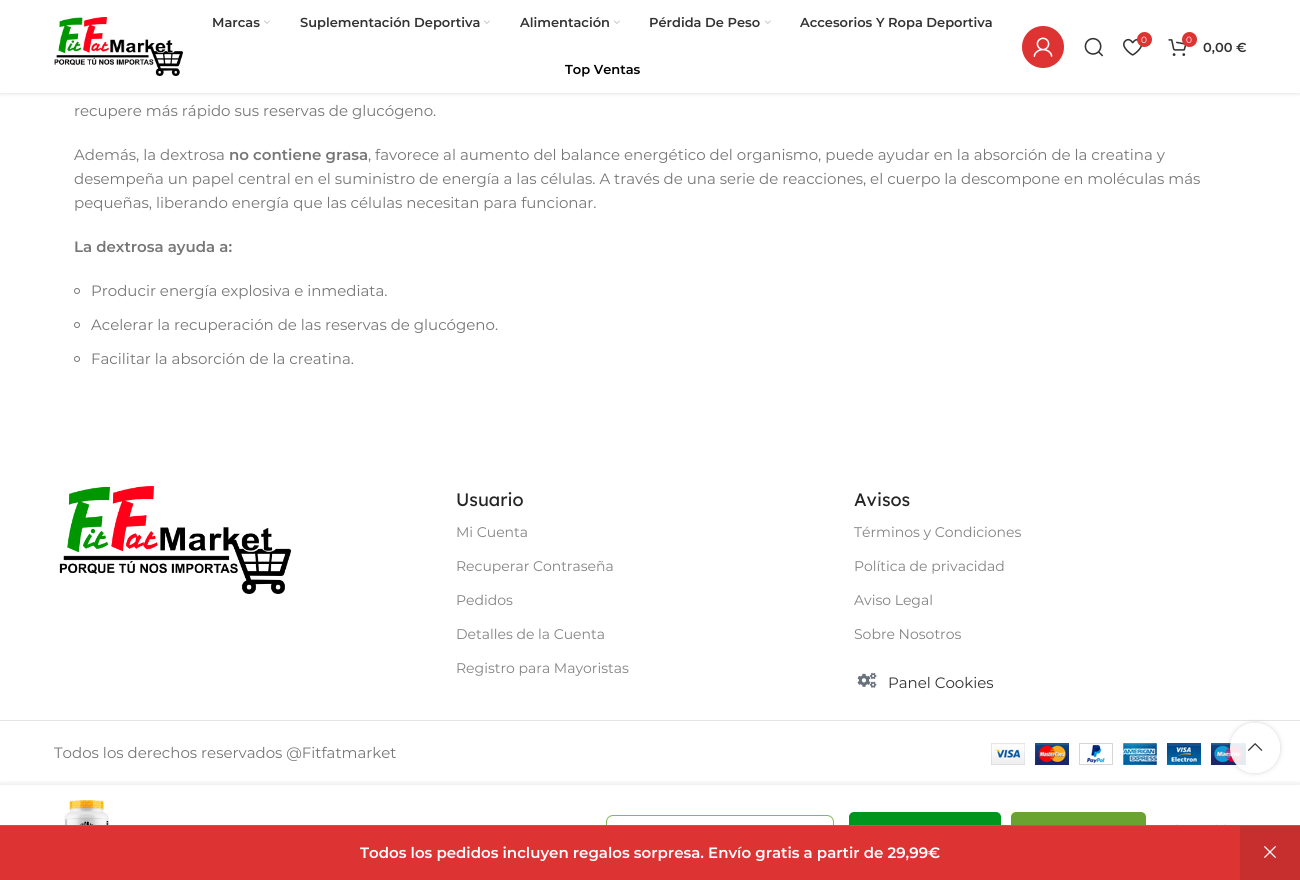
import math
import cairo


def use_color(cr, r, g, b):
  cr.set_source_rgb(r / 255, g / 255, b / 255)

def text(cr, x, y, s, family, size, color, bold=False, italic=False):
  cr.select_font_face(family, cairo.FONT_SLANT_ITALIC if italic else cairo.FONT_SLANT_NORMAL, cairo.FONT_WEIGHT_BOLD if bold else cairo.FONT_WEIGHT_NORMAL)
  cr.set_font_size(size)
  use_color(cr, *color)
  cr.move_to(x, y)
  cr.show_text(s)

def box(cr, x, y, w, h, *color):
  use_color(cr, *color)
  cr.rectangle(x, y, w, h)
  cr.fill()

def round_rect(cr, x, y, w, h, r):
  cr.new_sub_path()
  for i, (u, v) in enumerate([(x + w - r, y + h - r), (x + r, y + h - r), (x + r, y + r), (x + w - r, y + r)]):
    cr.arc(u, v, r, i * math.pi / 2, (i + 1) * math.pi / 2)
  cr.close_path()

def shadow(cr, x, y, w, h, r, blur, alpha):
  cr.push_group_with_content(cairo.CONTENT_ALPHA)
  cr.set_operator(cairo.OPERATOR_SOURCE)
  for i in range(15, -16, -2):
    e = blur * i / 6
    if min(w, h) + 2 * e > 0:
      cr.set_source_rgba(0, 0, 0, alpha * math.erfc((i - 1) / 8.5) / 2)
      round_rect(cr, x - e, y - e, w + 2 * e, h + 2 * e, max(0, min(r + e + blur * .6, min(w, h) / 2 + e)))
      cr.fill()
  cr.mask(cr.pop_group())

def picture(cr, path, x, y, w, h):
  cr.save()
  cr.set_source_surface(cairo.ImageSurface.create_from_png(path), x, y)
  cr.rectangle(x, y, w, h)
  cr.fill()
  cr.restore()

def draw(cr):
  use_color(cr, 255, 255, 255)
  cr.paint()
  use_color(cr, 0, 0, 0)
  shadow(cr, 0, 1, 1300, 93, 0, 1.5, 0.1)
  box(cr, 0, 0, 1300, 93, 255, 255, 255)
  picture(cr, "img_01.png", 54, 17, 129, 59)
  picture(cr, "img_02.png", 264, 20, 6, 4)
  picture(cr, "img_02.png", 484, 20, 6, 4)
  picture(cr, "img_02.png", 614, 20, 6, 4)
  picture(cr, "img_02.png", 765, 20, 6, 4)
  use_color(cr, 221, 51, 51)
  cr.arc(1043, 47, 21, 0, 2 * math.pi)
  cr.fill()
  picture(cr, "img_03.png", 1033, 37, 20, 20)
  picture(cr, "img_04.png", 1084, 37, 19, 20)
  picture(cr, "img_05.png", 1123, 38, 20, 18)
  cr.arc(1144.5, 39.5, 7.5, 0, 2 * math.pi)
  cr.fill()
  picture(cr, "img_06.png", 1168, 39, 19, 17)
  cr.arc(1189.5, 39.5, 7.5, 0, 2 * math.pi)
  cr.fill()
  cr.arc(77, 291, 2.5, 0, 2 * math.pi)
  use_color(cr, 119, 119, 119)
  cr.set_line_width(1)
  cr.stroke()
  cr.arc(77, 325, 2.5, 0, 2 * math.pi)
  cr.stroke()
  cr.arc(77, 359, 2.5, 0, 2 * math.pi)
  cr.stroke()
  picture(cr, "img_07.png", 59, 486, 232, 108)
  picture(cr, "img_08.png", 857, 672, 20, 16)
  box(cr, 0, 720, 1300, 1, 228, 228, 228)
  picture(cr, "img_09.png", 991, 743, 255, 22)
  cr.save()
  cr.set_fill_rule(cairo.FILL_RULE_EVEN_ODD)
  cr.new_path()
  cr.move_to(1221, 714)
  cr.line_to(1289, 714)
  cr.line_to(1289, 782)
  cr.line_to(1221, 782)
  cr.close_path()
  cr.move_to(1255, 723)
  cr.curve_to(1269, 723, 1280, 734, 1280, 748)
  cr.curve_to(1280, 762, 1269, 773, 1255, 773)
  cr.curve_to(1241, 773, 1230, 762, 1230, 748)
  cr.curve_to(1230, 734, 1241, 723, 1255, 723)
  cr.close_path()
  cr.clip()
  use_color(cr, 0, 0, 0)
  shadow(cr, 1230, 723, 50, 50, 25, 2.5, 0.17)
  cr.restore()
  cr.save()
  cr.rectangle(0, 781, 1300, 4)
  cr.clip()
  use_color(cr, 0, 0, 0)
  shadow(cr, 0, 785, 1300, 95, 0, 4.5, 0.12)
  cr.restore()
  cr.set_source_rgba(1, 1, 1, 0.9)
  cr.arc(1255, 748, 25, 0, 2 * math.pi)
  cr.fill()
  picture(cr, "img_10.png", 1248, 743, 15, 8)
  picture(cr, "img_11.png", 54, 800, 65, 25)
  round_rect(cr, 606.5, 815.5, 227, 34, 6.5)
  use_color(cr, 133, 185, 81)
  cr.stroke()
  use_color(cr, 0, 149, 29)
  round_rect(cr, 849, 812, 152, 42, 5)
  cr.fill()
  use_color(cr, 107, 163, 49)
  round_rect(cr, 1011, 812, 135, 42, 5)
  cr.fill()
  picture(cr, "img_12.png", 1176, 824, 2, 1)
  picture(cr, "img_13.png", 1215, 824, 11, 1)
  box(cr, 0, 826, 1240, 54, 221, 51, 51)
  box(cr, 0, 825, 1300, 1, 224, 71, 71)
  box(cr, 1240, 826, 60, 54, 199, 46, 46)
  picture(cr, "img_14.png", 1264, 846, 12, 12)
  text(cr, 212, 27, "Marcas", "Montserrat SemiBold", 13, (51, 51, 51))
  text(cr, 300, 27, "Suplementación Deportiva", "Montserrat SemiBold", 13, (51, 51, 51))
  text(cr, 520, 27, "Alimentación", "Montserrat SemiBold", 13, (51, 51, 51))
  text(cr, 649, 27, "Pérdida De Peso", "Montserrat SemiBold", 13, (51, 51, 51))
  text(cr, 800, 27, "Accesorios Y Ropa Deportiva", "Montserrat SemiBold", 13, (51, 51, 51))
  text(cr, 565, 74, "Top Ventas", "Montserrat SemiBold", 13, (0, 0, 0))
  text(cr, 1141, 43, "0", "Montserrat", 9, (255, 255, 255))
  text(cr, 1186, 43, "0", "Montserrat", 9, (255, 255, 255))
  text(cr, 1203, 52, "0,00 €", "Montserrat SemiBold", 13, (51, 51, 51))
  text(cr, 74, 116, "recupere más rápido sus reservas de glucógeno.", "Montserrat", 15, (118, 118, 118))
  text(cr, 74, 160, "Además, la dextrosa", "Montserrat", 15, (118, 118, 118))
  text(cr, 229, 160, "no contiene grasa", "Montserrat SemiBold", 15, (118, 118, 118))
  text(cr, 368, 160, ", favorece al aumento del balance energético del organismo, puede ayudar en la absorción de la creatina y", "Montserrat", 15, (118, 118, 118))
  text(cr, 74, 184, "desempeña un papel central en el suministro de energía a las células. A través de una serie de reacciones, el cuerpo la descompone en moléculas más", "Montserrat", 15, (118, 118, 118))
  text(cr, 74, 208, "pequeñas, liberando energía que las células necesitan para funcionar.", "Montserrat", 15, (118, 118, 118))
  text(cr, 74, 252, "La dextrosa ayuda a:", "Montserrat SemiBold", 15, (118, 118, 118))
  text(cr, 91, 296, "Producir energía explosiva e inmediata.", "Montserrat", 15, (118, 118, 118))
  text(cr, 91, 330, "Acelerar la recuperación de las reservas de glucógeno.", "Montserrat", 15, (118, 118, 118))
  text(cr, 91, 364, "Facilitar la absorción de la creatina.", "Montserrat", 15, (118, 118, 118))
  text(cr, 456, 506, "Usuario", "Lexend Deca", 18, (36, 36, 36))
  text(cr, 456, 537, "Mi Cuenta", "Montserrat", 14, (131, 131, 131))
  text(cr, 456, 571, "Recuperar Contraseña", "Montserrat", 14, (131, 131, 131))
  text(cr, 456, 605, "Pedidos", "Montserrat", 14, (131, 131, 131))
  text(cr, 456, 639, "Detalles de la Cuenta", "Montserrat", 14, (131, 131, 131))
  text(cr, 456, 673, "Registro para Mayoristas", "Montserrat", 14, (131, 131, 131))
  text(cr, 854, 506, "Avisos", "Lexend Deca", 18, (36, 36, 36))
  text(cr, 854, 537, "Términos y Condiciones", "Montserrat", 14, (131, 131, 131))
  text(cr, 854, 571, "Política de privacidad", "Montserrat", 14, (131, 131, 131))
  text(cr, 854, 605, "Aviso Legal", "Montserrat", 14, (131, 131, 131))
  text(cr, 854, 639, "Sobre Nosotros", "Montserrat", 14, (131, 131, 131))
  text(cr, 888, 688, "Panel Cookies", "Montserrat", 15, (51, 51, 51))
  text(cr, 54, 758, "Todos los derechos reservados @Fitfatmarket", "Montserrat", 15, (118, 118, 118))
  text(cr, 360, 858, "Todos los pedidos incluyen regalos sorpresa. Envío gratis a partir de 29,99€", "Montserrat SemiBold", 15, (255, 255, 255))


surface = cairo.ImageSurface(cairo.FORMAT_RGB24, 1300, 880)
cr = cairo.Context(surface)
options = cairo.FontOptions()
options.set_hint_metrics(cairo.HINT_METRICS_OFF)
options.set_hint_style(cairo.HINT_STYLE_NONE)
cr.set_font_options(options)
cr.set_miter_limit(4)
draw(cr)
surface.write_to_png("out.png")
